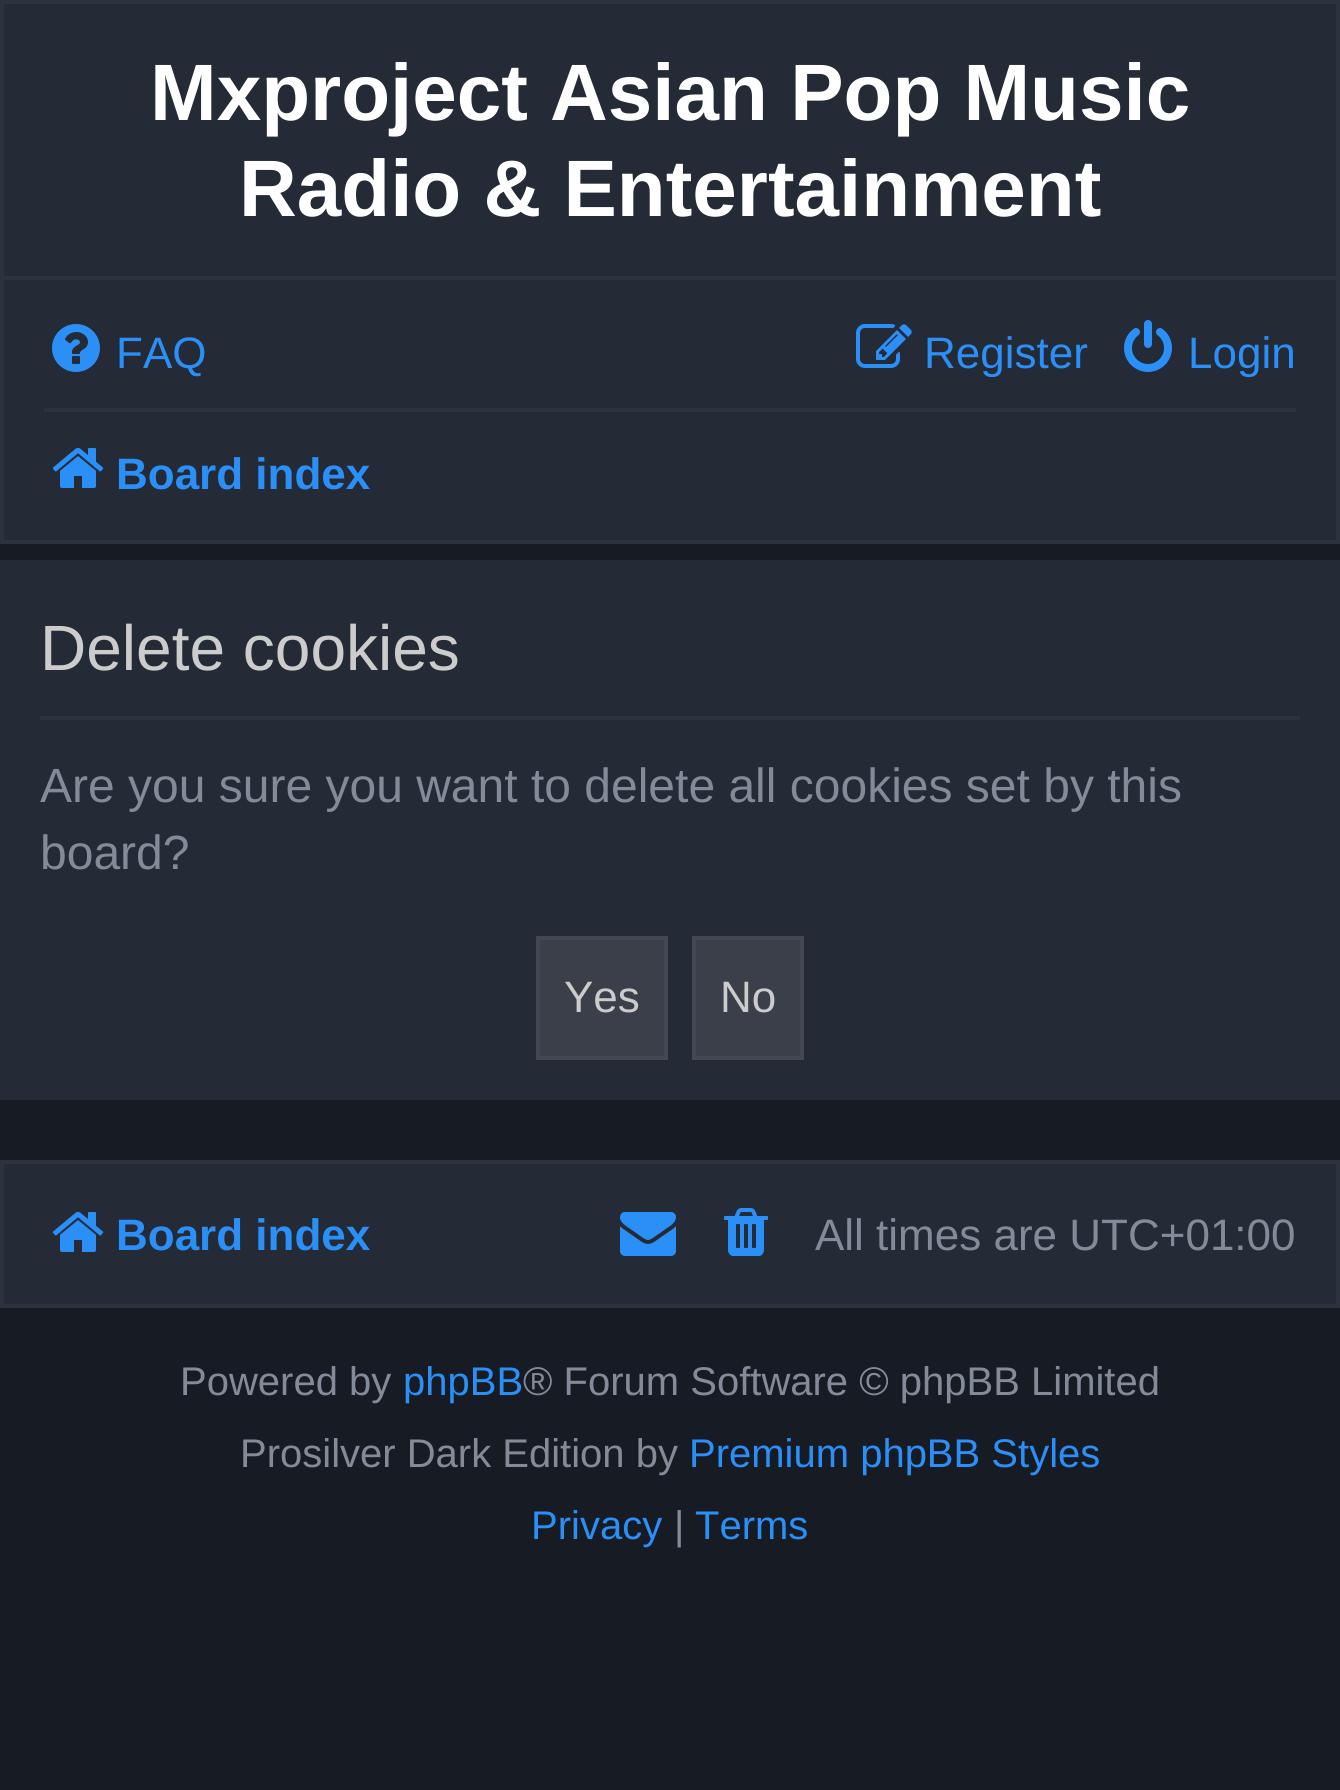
import math
import cairo


def use_color(cr, r, g, b):
  cr.set_source_rgb(r / 255, g / 255, b / 255)

def text(cr, x, y, s, family, size, color, bold=False, italic=False):
  cr.select_font_face(family, cairo.FONT_SLANT_ITALIC if italic else cairo.FONT_SLANT_NORMAL, cairo.FONT_WEIGHT_BOLD if bold else cairo.FONT_WEIGHT_NORMAL)
  cr.set_font_size(size)
  use_color(cr, *color)
  cr.move_to(x, y)
  cr.show_text(s)

def box(cr, x, y, w, h, *color):
  use_color(cr, *color)
  cr.rectangle(x, y, w, h)
  cr.fill()

def picture(cr, path, x, y, w, h):
  cr.save()
  cr.set_source_surface(cairo.ImageSurface.create_from_png(path), x, y)
  cr.rectangle(x, y, w, h)
  cr.fill()
  cr.restore()

def draw(cr):
  use_color(cr, 23, 27, 36)
  cr.paint()
  use_color(cr, 36, 42, 54)
  cr.rectangle(2, 2, 1336, 276)
  cr.fill_preserve()
  use_color(cr, 45, 51, 62)
  cr.set_line_width(4)
  cr.stroke()
  use_color(cr, 36, 42, 54)
  cr.rectangle(2, 278, 1336, 264)
  cr.fill_preserve()
  use_color(cr, 45, 51, 62)
  cr.stroke()
  picture(cr, "img_01.png", 52, 324, 48, 48)
  picture(cr, "img_02.png", 856, 324, 56, 44)
  picture(cr, "img_03.png", 1124, 320, 48, 52)
  box(cr, 44, 408, 1252, 4, 45, 51, 62)
  picture(cr, "img_04.png", 52, 447, 52, 41)
  box(cr, 0, 560, 1340, 540, 36, 42, 54)
  box(cr, 40, 716, 1260, 4, 45, 51, 62)
  use_color(cr, 58, 63, 74)
  cr.rectangle(538, 938, 128, 120)
  cr.fill_preserve()
  use_color(cr, 66, 71, 81)
  cr.stroke()
  use_color(cr, 58, 63, 74)
  cr.rectangle(694, 938, 108, 120)
  cr.fill_preserve()
  use_color(cr, 66, 71, 81)
  cr.stroke()
  use_color(cr, 36, 42, 54)
  cr.rectangle(2, 1162, 1336, 144)
  cr.fill_preserve()
  use_color(cr, 45, 51, 62)
  cr.stroke()
  picture(cr, "img_04.png", 52, 1211, 52, 41)
  picture(cr, "img_05.png", 620, 1212, 56, 44)
  picture(cr, "img_06.png", 724, 1208, 44, 48)
  text(cr, 150, 120, "Mxproject Asian Pop Music", "Liberation Sans", 80, (255, 255, 255), bold=True)
  text(cr, 239, 216, "Radio & Entertainment", "Liberation Sans", 80, (255, 255, 255), bold=True)
  text(cr, 116, 368, "FAQ", "Liberation Sans", 44, (42, 143, 247))
  text(cr, 924, 368, "Register", "Liberation Sans", 44, (42, 143, 247))
  text(cr, 1188, 368, "Login", "Liberation Sans", 44, (42, 143, 247))
  text(cr, 116, 489, "Board index", "Liberation Sans", 44, (42, 143, 247), bold=True)
  text(cr, 40, 670, "Delete cookies", "Liberation Sans", 64, (204, 204, 204))
  text(cr, 40, 802, "Are you sure you want to delete all cookies set by this", "Liberation Sans", 48, (131, 139, 152))
  text(cr, 40, 869, "board?", "Liberation Sans", 48, (131, 139, 152))
  text(cr, 564, 1012, "Yes", "Liberation Sans", 44, (204, 204, 204))
  text(cr, 720, 1012, "No", "Liberation Sans", 44, (204, 204, 204))
  text(cr, 116, 1250, "Board index", "Liberation Sans", 44, (42, 143, 247), bold=True)
  text(cr, 815, 1250, "All times are UTC+01:00", "Liberation Sans", 44, (131, 139, 152))
  text(cr, 180, 1395, "Powered by", "Liberation Sans", 40, (131, 139, 152))
  text(cr, 403, 1395, "phpBB", "Liberation Sans", 40, (42, 143, 247))
  text(cr, 523, 1395, "® Forum Software © phpBB Limited", "Liberation Sans", 40, (131, 139, 152))
  text(cr, 240, 1467, "Prosilver Dark Edition by", "Liberation Sans", 40, (131, 139, 152))
  text(cr, 689, 1467, "Premium phpBB Styles", "Liberation Sans", 40, (42, 143, 247))
  text(cr, 531, 1539, "Privacy", "Liberation Sans", 40, (42, 143, 247))
  text(cr, 674, 1539, "|", "Liberation Sans", 40, (131, 139, 152))
  text(cr, 695, 1539, "Terms", "Liberation Sans", 40, (42, 143, 247))


surface = cairo.ImageSurface(cairo.FORMAT_RGB24, 1340, 1790)
cr = cairo.Context(surface)
options = cairo.FontOptions()
options.set_hint_metrics(cairo.HINT_METRICS_OFF)
options.set_hint_style(cairo.HINT_STYLE_NONE)
cr.set_font_options(options)
cr.set_miter_limit(4)
draw(cr)
surface.write_to_png("out.png")
